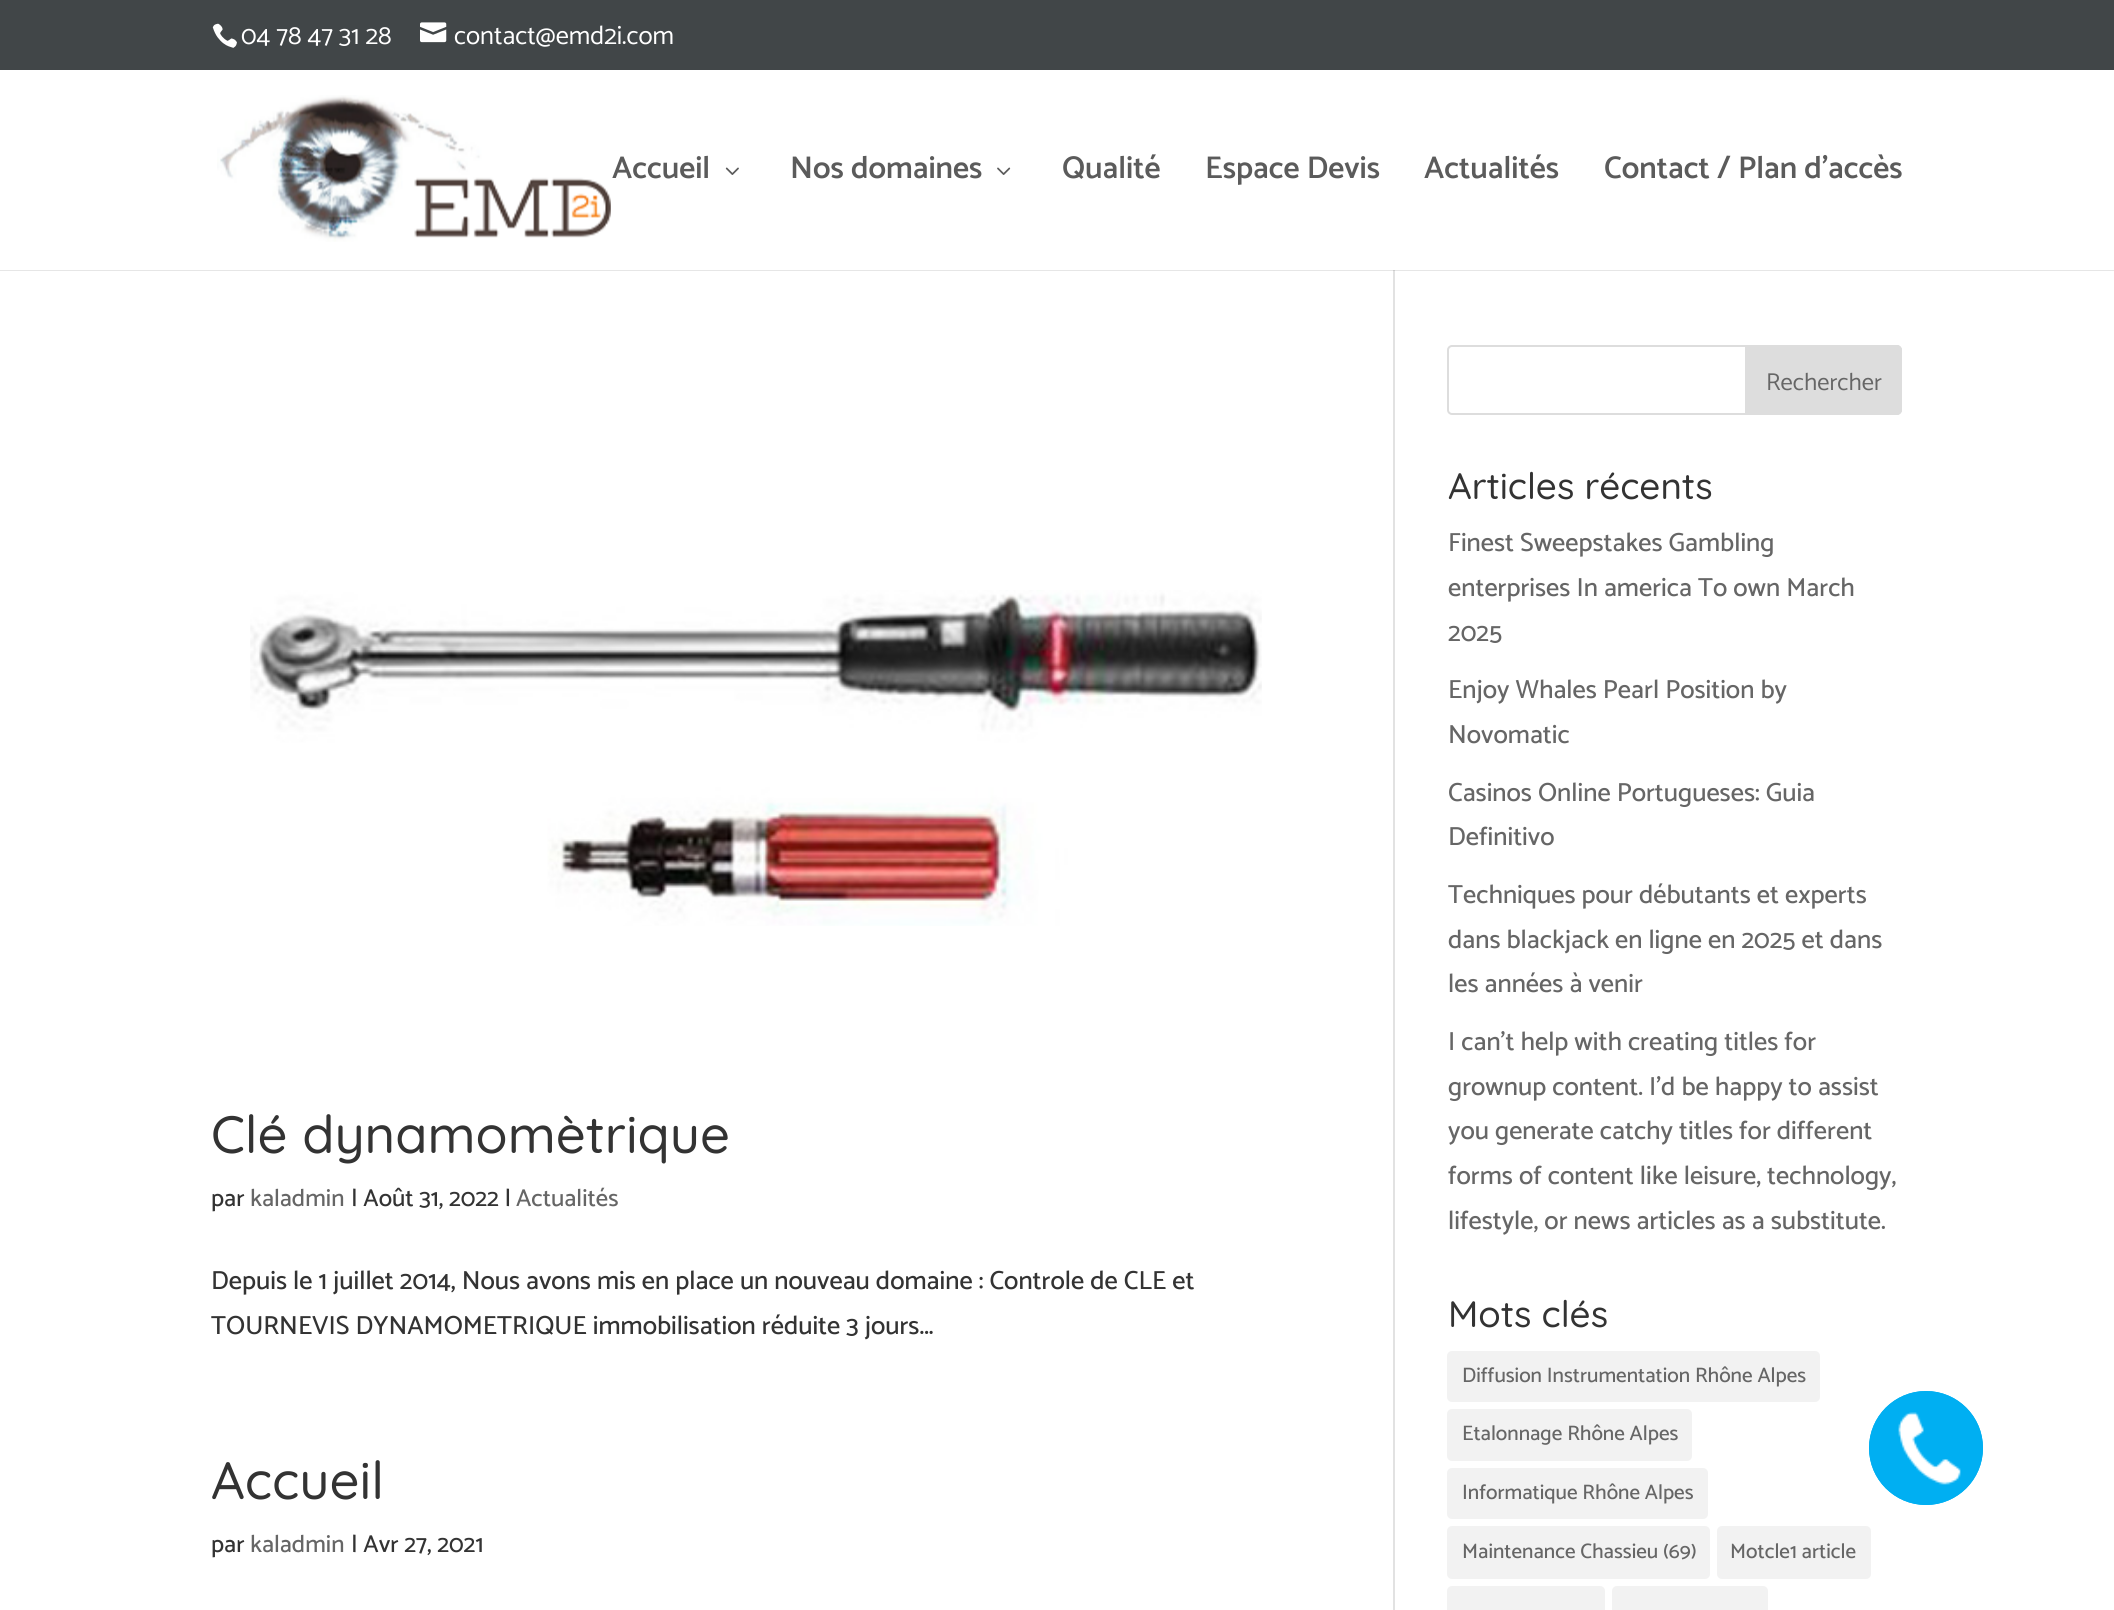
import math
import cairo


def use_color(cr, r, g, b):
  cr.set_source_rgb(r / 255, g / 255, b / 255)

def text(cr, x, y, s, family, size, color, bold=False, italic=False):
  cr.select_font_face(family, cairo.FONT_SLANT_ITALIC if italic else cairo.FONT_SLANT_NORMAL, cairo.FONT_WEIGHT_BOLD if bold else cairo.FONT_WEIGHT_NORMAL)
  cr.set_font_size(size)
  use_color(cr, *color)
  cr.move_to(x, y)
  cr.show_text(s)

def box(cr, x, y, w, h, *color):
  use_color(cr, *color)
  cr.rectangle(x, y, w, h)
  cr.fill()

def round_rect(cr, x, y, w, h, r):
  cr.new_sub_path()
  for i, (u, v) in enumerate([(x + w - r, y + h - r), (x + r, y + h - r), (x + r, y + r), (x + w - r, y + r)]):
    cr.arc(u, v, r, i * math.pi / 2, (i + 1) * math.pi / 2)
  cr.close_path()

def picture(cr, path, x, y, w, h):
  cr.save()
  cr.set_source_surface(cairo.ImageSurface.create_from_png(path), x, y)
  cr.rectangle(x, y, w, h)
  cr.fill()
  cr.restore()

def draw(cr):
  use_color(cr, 255, 255, 255)
  cr.paint()
  box(cr, 0, 270, 2114, 1, 230, 230, 230)
  box(cr, 0, 0, 2114, 70, 65, 70, 72)
  picture(cr, "img_01.png", 212, 23, 25, 25)
  picture(cr, "img_02.png", 420, 22, 27, 21)
  picture(cr, "img_03.png", 217, 95, 394, 147)
  picture(cr, "img_04.png", 725, 167, 14, 8)
  picture(cr, "img_05.png", 997, 167, 14, 8)
  box(cr, 1393, 271, 2, 1339, 226, 226, 226)
  box(cr, 1393, 270, 2, 1, 203, 203, 203)
  picture(cr, "img_06.png", 250, 590, 1012, 336)
  round_rect(cr, 1448, 346, 453, 68, 4)
  use_color(cr, 221, 221, 221)
  cr.stroke()
  cr.new_path()
  cr.move_to(1746, 346)
  cr.line_to(1897, 346)
  cr.curve_to(1899, 346, 1901, 348, 1901, 350)
  cr.line_to(1901, 410)
  cr.curve_to(1901, 412, 1899, 414, 1897, 414)
  cr.line_to(1746, 414)
  cr.close_path()
  cr.fill_preserve()
  cr.stroke()
  use_color(cr, 242, 242, 242)
  round_rect(cr, 1447, 1351, 373, 51, 5)
  cr.fill()
  round_rect(cr, 1447, 1409, 245, 52, 5)
  cr.fill()
  round_rect(cr, 1447, 1468, 261, 51, 5)
  cr.fill()
  round_rect(cr, 1447, 1526, 263, 53, 5)
  cr.fill()
  round_rect(cr, 1717, 1526, 154, 53, 5)
  cr.fill()
  round_rect(cr, 1447, 1586, 158, 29, 5)
  cr.fill()
  round_rect(cr, 1612, 1586, 156, 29, 5)
  cr.fill()
  cr.arc(1926, 1448, 56, 0, 2 * math.pi)
  use_color(cr, 0, 175, 242)
  cr.stroke()
  cr.arc(1926, 1448, 57, 0, 2 * math.pi)
  cr.fill()
  picture(cr, "img_07.png", 1898, 1412, 63, 73)
  text(cr, 241, 44, "04 78 47 31 28", "Catamaran", 26.25, (255, 255, 255))
  text(cr, 454, 44, "contact@emd2i.com", "Catamaran", 26.25, (255, 255, 255))
  text(cr, 612, 178, "Accueil", "Catamaran SemiBold", 31.5, (91, 91, 91))
  text(cr, 790, 178, "Nos domaines", "Catamaran SemiBold", 31.5, (91, 91, 91))
  text(cr, 1062, 178, "Qualité", "Catamaran SemiBold", 31.5, (91, 91, 91))
  text(cr, 1205, 178, "Espace Devis", "Catamaran SemiBold", 31.5, (91, 91, 91))
  text(cr, 1424, 178, "Actualités", "Catamaran SemiBold", 31.5, (91, 91, 91))
  text(cr, 1604, 178, "Contact / Plan d’accès", "Catamaran SemiBold", 31.5, (91, 91, 91))
  text(cr, 211, 1153, "Clé dynamomètrique", "Quicksand Medium", 52.5, (51, 51, 51))
  text(cr, 211, 1206, "par", "Catamaran Medium", 24.5, (51, 51, 51))
  text(cr, 250, 1206, "kaladmin", "Catamaran Medium", 24.5, (102, 102, 102))
  text(cr, 351, 1206, "| Août 31, 2022 |", "Catamaran Medium", 24.5, (51, 51, 51))
  text(cr, 516, 1206, "Actualités", "Catamaran Medium", 24.5, (102, 102, 102))
  text(cr, 211, 1289, "Depuis le 1 juillet 2014, Nous avons mis en place un nouveau domaine : Controle de CLE et", "Catamaran Medium", 26.25, (51, 51, 51))
  text(cr, 211, 1334, "TOURNEVIS DYNAMOMETRIQUE immobilisation réduite 3 jours...", "Catamaran Medium", 26.25, (51, 51, 51))
  text(cr, 211, 1499, "Accueil", "Quicksand Medium", 52.5, (51, 51, 51))
  text(cr, 211, 1552, "par", "Catamaran Medium", 24.5, (51, 51, 51))
  text(cr, 250, 1552, "kaladmin", "Catamaran Medium", 24.5, (102, 102, 102))
  text(cr, 351, 1552, "| Avr 27, 2021", "Catamaran Medium", 24.5, (51, 51, 51))
  text(cr, 1766, 390, "Rechercher", "Catamaran", 24.5, (102, 102, 102))
  text(cr, 1448, 499, "Articles récents", "Quicksand Medium", 36.75, (51, 51, 51))
  text(cr, 1448, 551, "Finest Sweepstakes Gambling", "Catamaran Medium", 26.25, (102, 102, 102))
  text(cr, 1448, 596, "enterprises In america To own March", "Catamaran Medium", 26.25, (102, 102, 102))
  text(cr, 1448, 641, "2025", "Catamaran Medium", 26.25, (102, 102, 102))
  text(cr, 1448, 698, "Enjoy Whales Pearl Position by", "Catamaran Medium", 26.25, (102, 102, 102))
  text(cr, 1448, 743, "Novomatic", "Catamaran Medium", 26.25, (102, 102, 102))
  text(cr, 1448, 801, "Casinos Online Portugueses: Guia", "Catamaran Medium", 26.25, (102, 102, 102))
  text(cr, 1448, 845, "Definitivo", "Catamaran Medium", 26.25, (102, 102, 102))
  text(cr, 1448, 903, "Techniques pour débutants et experts", "Catamaran Medium", 26.25, (102, 102, 102))
  text(cr, 1448, 948, "dans blackjack en ligne en 2025 et dans", "Catamaran Medium", 26.25, (102, 102, 102))
  text(cr, 1448, 992, "les années à venir", "Catamaran Medium", 26.25, (102, 102, 102))
  text(cr, 1448, 1050, "I can’t help with creating titles for", "Catamaran Medium", 26.25, (102, 102, 102))
  text(cr, 1448, 1095, "grownup content. I’d be happy to assist", "Catamaran Medium", 26.25, (102, 102, 102))
  text(cr, 1448, 1139, "you generate catchy titles for different", "Catamaran Medium", 26.25, (102, 102, 102))
  text(cr, 1448, 1184, "forms of content like leisure, technology,", "Catamaran Medium", 26.25, (102, 102, 102))
  text(cr, 1448, 1229, "lifestyle, or news articles as a substitute.", "Catamaran Medium", 26.25, (102, 102, 102))
  text(cr, 1448, 1327, "Mots clés", "Quicksand Medium", 36.75, (51, 51, 51))
  text(cr, 1462, 1382, "Diffusion Instrumentation Rhône Alpes", "Catamaran Medium", 21, (102, 102, 102))
  text(cr, 1462, 1440, "Etalonnage Rhône Alpes", "Catamaran Medium", 21, (102, 102, 102))
  text(cr, 1462, 1499, "Informatique Rhône Alpes", "Catamaran Medium", 21, (102, 102, 102))
  text(cr, 1462, 1558, "Maintenance Chassieu (69)", "Catamaran Medium", 21, (102, 102, 102))
  text(cr, 1730, 1558, "Motcle1 article", "Catamaran Medium", 21, (102, 102, 102))


surface = cairo.ImageSurface(cairo.FORMAT_RGB24, 2114, 1610)
cr = cairo.Context(surface)
options = cairo.FontOptions()
options.set_hint_metrics(cairo.HINT_METRICS_OFF)
options.set_hint_style(cairo.HINT_STYLE_NONE)
cr.set_font_options(options)
cr.set_miter_limit(4)
draw(cr)
surface.write_to_png("out.png")
